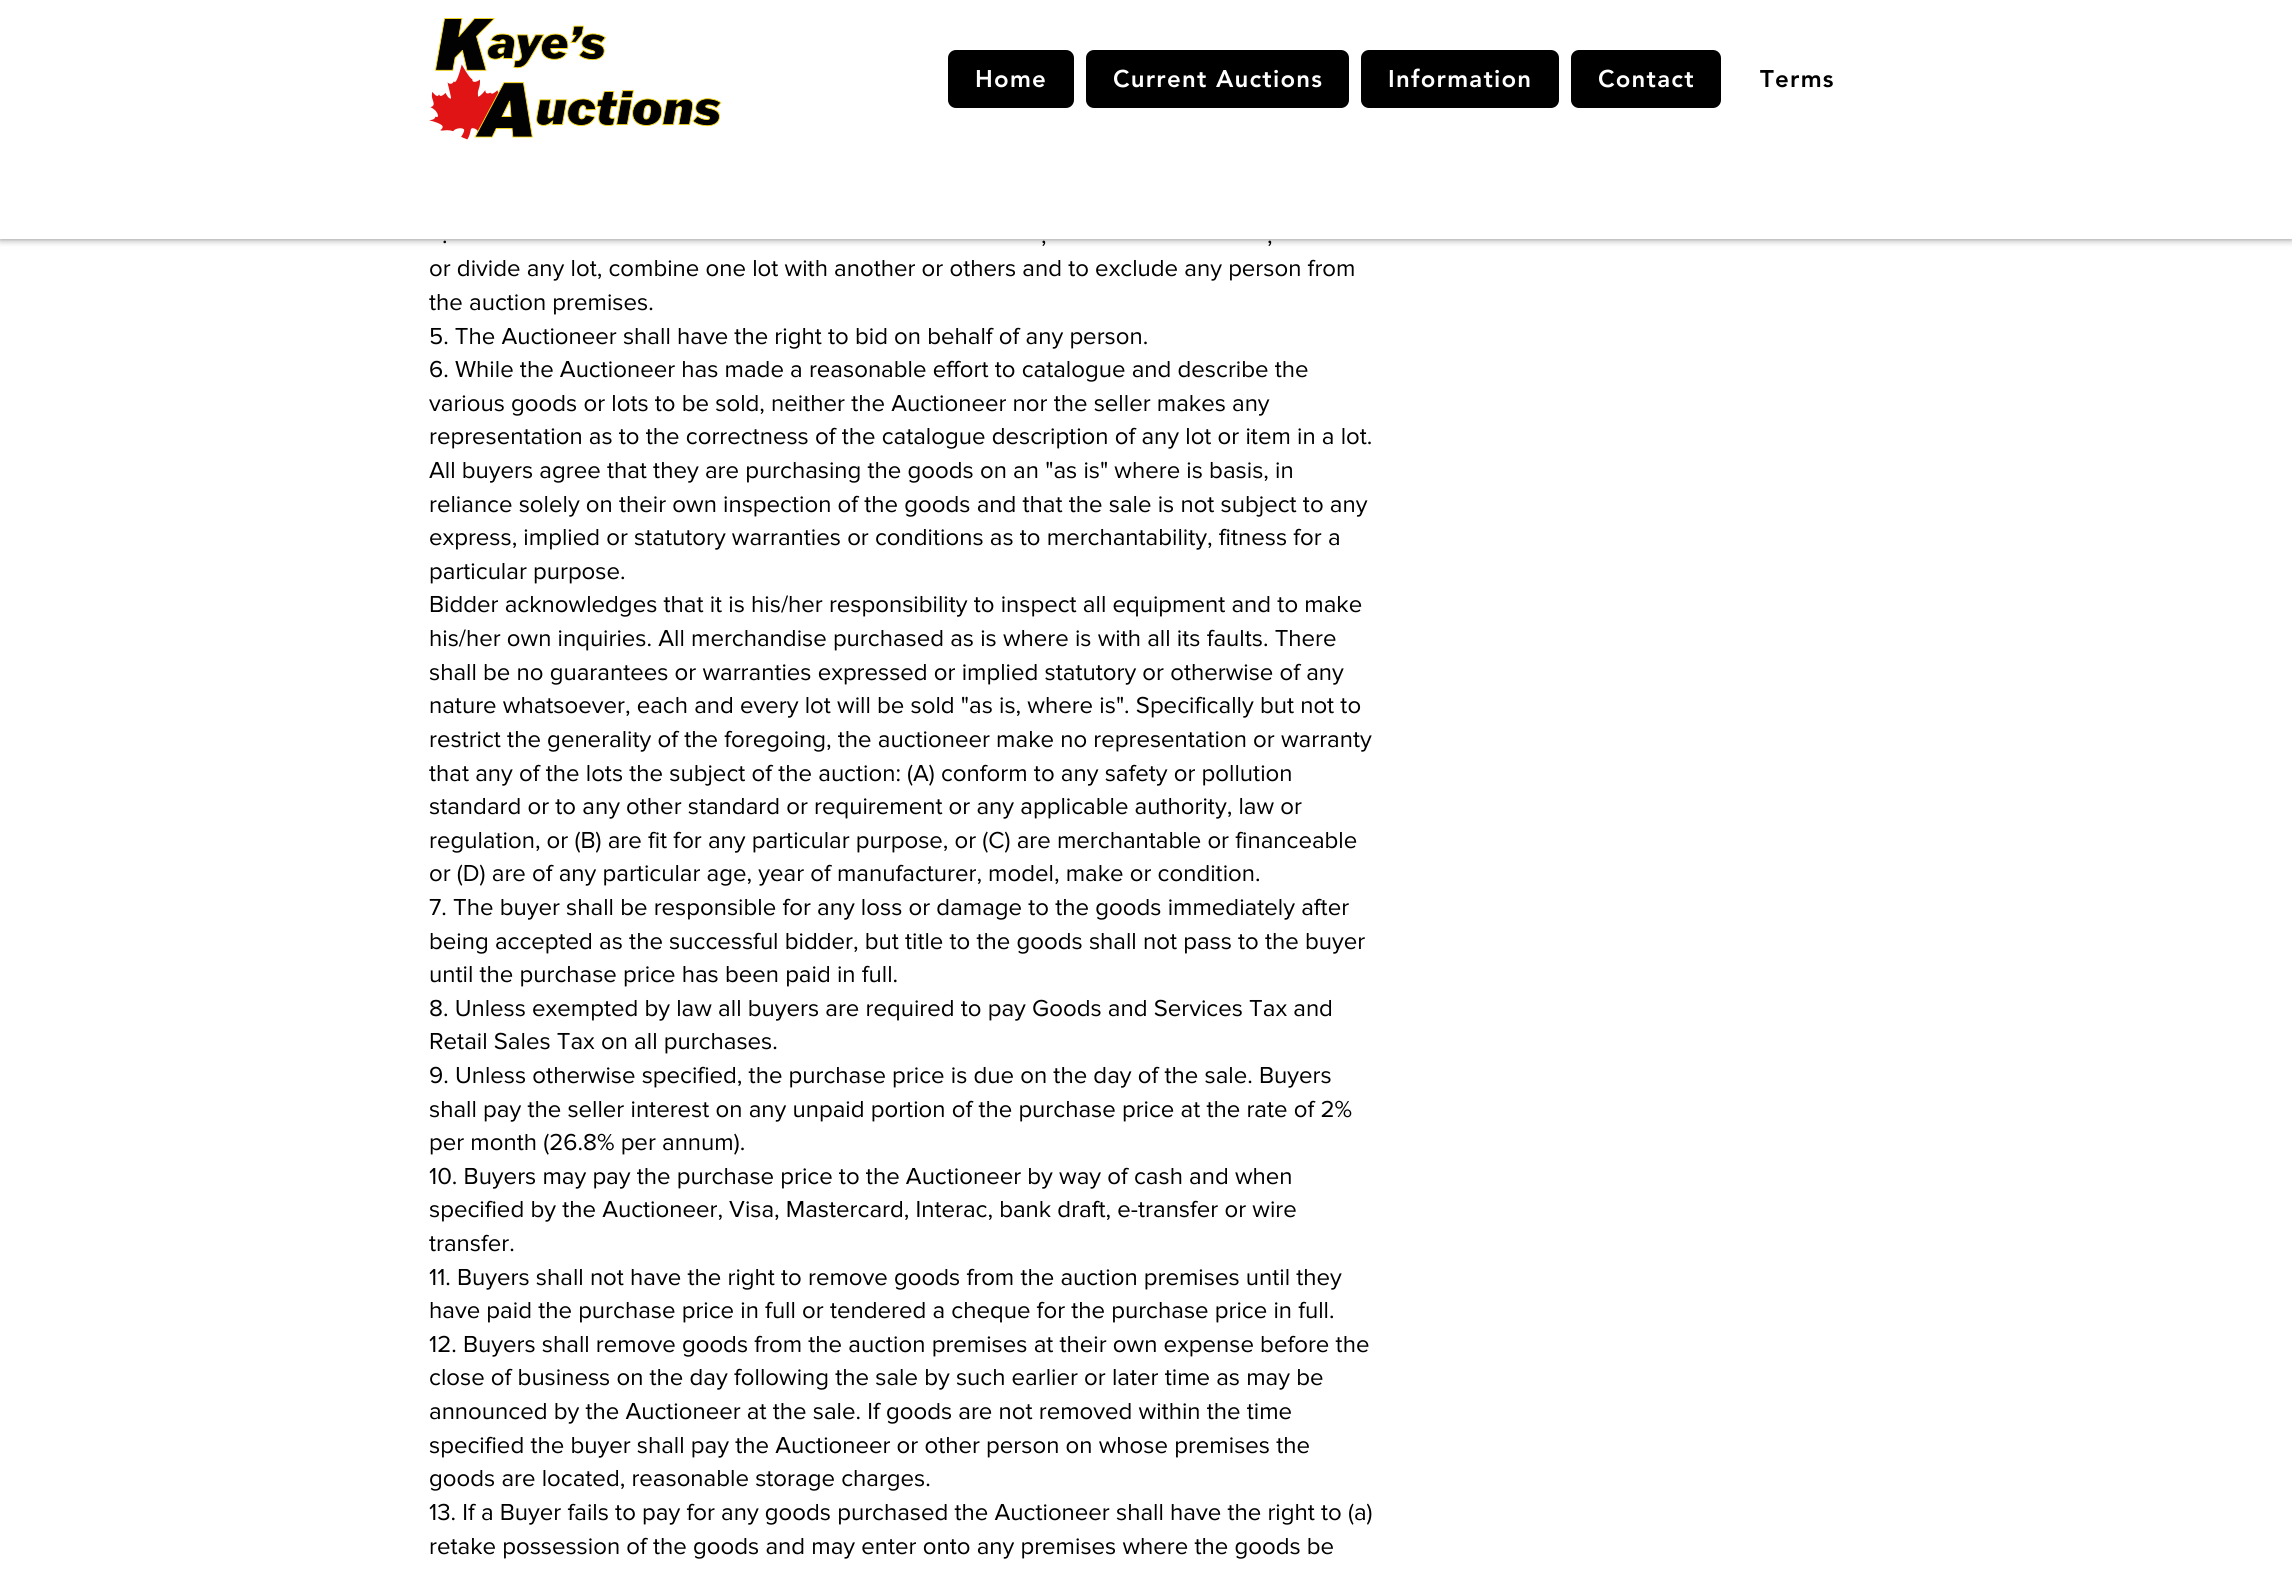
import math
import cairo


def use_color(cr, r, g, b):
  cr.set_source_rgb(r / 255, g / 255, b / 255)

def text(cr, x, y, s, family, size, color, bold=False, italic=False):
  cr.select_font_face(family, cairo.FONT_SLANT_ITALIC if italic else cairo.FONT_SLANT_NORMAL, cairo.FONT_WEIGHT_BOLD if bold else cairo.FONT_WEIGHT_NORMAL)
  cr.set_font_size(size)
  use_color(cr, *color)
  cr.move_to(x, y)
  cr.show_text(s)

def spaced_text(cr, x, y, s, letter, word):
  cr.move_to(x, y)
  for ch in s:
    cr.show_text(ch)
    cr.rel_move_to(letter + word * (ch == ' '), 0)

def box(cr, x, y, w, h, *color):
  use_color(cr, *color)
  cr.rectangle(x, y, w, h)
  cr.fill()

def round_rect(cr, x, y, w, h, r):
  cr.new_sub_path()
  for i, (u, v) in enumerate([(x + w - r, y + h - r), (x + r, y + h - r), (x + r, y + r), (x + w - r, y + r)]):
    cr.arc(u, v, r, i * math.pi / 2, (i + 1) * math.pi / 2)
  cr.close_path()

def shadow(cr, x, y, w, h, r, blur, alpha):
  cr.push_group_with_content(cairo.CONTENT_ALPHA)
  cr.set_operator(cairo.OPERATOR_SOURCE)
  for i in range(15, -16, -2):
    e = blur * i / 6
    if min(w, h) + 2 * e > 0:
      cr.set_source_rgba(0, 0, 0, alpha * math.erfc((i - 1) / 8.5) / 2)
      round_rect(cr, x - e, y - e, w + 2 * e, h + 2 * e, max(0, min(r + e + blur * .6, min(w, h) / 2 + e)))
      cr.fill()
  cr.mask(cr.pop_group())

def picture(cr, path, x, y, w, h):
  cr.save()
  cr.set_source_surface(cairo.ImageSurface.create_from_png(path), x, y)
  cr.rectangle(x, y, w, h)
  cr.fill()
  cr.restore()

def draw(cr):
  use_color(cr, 255, 255, 255)
  cr.paint()
  use_color(cr, 0, 0, 0)
  shadow(cr, 0, 0, 2292, 239, 0, 4, 0.5)
  box(cr, 0, 0, 2292, 239, 255, 255, 255)
  picture(cr, "img_01.png", 429, 18, 293, 122)
  use_color(cr, 0, 0, 0)
  round_rect(cr, 948, 50, 126, 58, 8)
  cr.fill()
  round_rect(cr, 1086, 50, 263, 58, 8)
  cr.fill()
  round_rect(cr, 1361, 50, 198, 58, 8)
  cr.fill()
  round_rect(cr, 1571, 50, 150, 58, 8)
  cr.fill()
  cr.select_font_face("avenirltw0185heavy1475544 Black")
  cr.set_font_size(24)
  use_color(cr, 255, 255, 255)
  spaced_text(cr, 975, 87, "Home", 1.25, 0)
  spaced_text(cr, 1113, 87, "Current Auctions", 1.25, 0)
  spaced_text(cr, 1388, 87, "Information", 1.25, 0)
  spaced_text(cr, 1598, 87, "Contact", 1.25, 0)
  use_color(cr, 0, 0, 0)
  spaced_text(cr, 1760, 87, "Terms", 1.25, 0)
  text(cr, 442, 243, ".", "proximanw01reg", 24, (0, 0, 0))
  text(cr, 1041, 243, ",", "proximanw01reg", 24, (0, 0, 0))
  text(cr, 1267, 243, ",", "proximanw01reg", 24, (0, 0, 0))
  text(cr, 429, 276, "or divide any lot, combine one lot with another or others and to exclude any person from", "proximanw01reg", 24, (0, 0, 0))
  text(cr, 429, 310, "the auction premises.", "proximanw01reg", 24, (0, 0, 0))
  text(cr, 429, 344, "5. The Auctioneer shall have the right to bid on behalf of any person.", "proximanw01reg", 24, (0, 0, 0))
  text(cr, 429, 377, "6. While the Auctioneer has made a reasonable effort to catalogue and describe the", "proximanw01reg", 24, (0, 0, 0))
  text(cr, 429, 411, "various goods or lots to be sold, neither the Auctioneer nor the seller makes any", "proximanw01reg", 24, (0, 0, 0))
  text(cr, 429, 444, "representation as to the correctness of the catalogue description of any lot or item in a lot.", "proximanw01reg", 24, (0, 0, 0))
  text(cr, 429, 478, "All buyers agree that they are purchasing the goods on an \"as is\" where is basis, in", "proximanw01reg", 24, (0, 0, 0))
  text(cr, 429, 512, "reliance solely on their own inspection of the goods and that the sale is not subject to any", "proximanw01reg", 24, (0, 0, 0))
  text(cr, 429, 545, "express, implied or statutory warranties or conditions as to merchantability, fitness for a", "proximanw01reg", 24, (0, 0, 0))
  text(cr, 429, 579, "particular purpose.", "proximanw01reg", 24, (0, 0, 0))
  text(cr, 429, 612, "Bidder acknowledges that it is his/her responsibility to inspect all equipment and to make", "proximanw01reg", 24, (0, 0, 0))
  text(cr, 429, 646, "his/her own inquiries. All merchandise purchased as is where is with all its faults. There", "proximanw01reg", 24, (0, 0, 0))
  text(cr, 429, 680, "shall be no guarantees or warranties expressed or implied statutory or otherwise of any", "proximanw01reg", 24, (0, 0, 0))
  text(cr, 429, 713, "nature whatsoever, each and every lot will be sold \"as is, where is\". Specifically but not to", "proximanw01reg", 24, (0, 0, 0))
  text(cr, 429, 747, "restrict the generality of the foregoing, the auctioneer make no representation or warranty", "proximanw01reg", 24, (0, 0, 0))
  text(cr, 429, 781, "that any of the lots the subject of the auction: (A) conform to any safety or pollution", "proximanw01reg", 24, (0, 0, 0))
  text(cr, 429, 814, "standard or to any other standard or requirement or any applicable authority, law or", "proximanw01reg", 24, (0, 0, 0))
  text(cr, 429, 848, "regulation, or (B) are fit for any particular purpose, or (C) are merchantable or financeable", "proximanw01reg", 24, (0, 0, 0))
  text(cr, 429, 881, "or (D) are of any particular age, year of manufacturer, model, make or condition.", "proximanw01reg", 24, (0, 0, 0))
  text(cr, 429, 915, "7. The buyer shall be responsible for any loss or damage to the goods immediately after", "proximanw01reg", 24, (0, 0, 0))
  text(cr, 429, 949, "being accepted as the successful bidder, but title to the goods shall not pass to the buyer", "proximanw01reg", 24, (0, 0, 0))
  text(cr, 429, 982, "until the purchase price has been paid in full.", "proximanw01reg", 24, (0, 0, 0))
  text(cr, 429, 1016, "8. Unless exempted by law all buyers are required to pay Goods and Services Tax and", "proximanw01reg", 24, (0, 0, 0))
  text(cr, 429, 1049, "Retail Sales Tax on all purchases.", "proximanw01reg", 24, (0, 0, 0))
  text(cr, 429, 1083, "9. Unless otherwise specified, the purchase price is due on the day of the sale. Buyers", "proximanw01reg", 24, (0, 0, 0))
  text(cr, 429, 1117, "shall pay the seller interest on any unpaid portion of the purchase price at the rate of 2%", "proximanw01reg", 24, (0, 0, 0))
  text(cr, 429, 1150, "per month (26.8% per annum).", "proximanw01reg", 24, (0, 0, 0))
  text(cr, 429, 1184, "10. Buyers may pay the purchase price to the Auctioneer by way of cash and when", "proximanw01reg", 24, (0, 0, 0))
  text(cr, 429, 1217, "specified by the Auctioneer, Visa, Mastercard, Interac, bank draft, e-transfer or wire", "proximanw01reg", 24, (0, 0, 0))
  text(cr, 429, 1251, "transfer.", "proximanw01reg", 24, (0, 0, 0))
  text(cr, 429, 1285, "11. Buyers shall not have the right to remove goods from the auction premises until they", "proximanw01reg", 24, (0, 0, 0))
  text(cr, 429, 1318, "have paid the purchase price in full or tendered a cheque for the purchase price in full.", "proximanw01reg", 24, (0, 0, 0))
  text(cr, 429, 1352, "12. Buyers shall remove goods from the auction premises at their own expense before the", "proximanw01reg", 24, (0, 0, 0))
  text(cr, 429, 1385, "close of business on the day following the sale by such earlier or later time as may be", "proximanw01reg", 24, (0, 0, 0))
  text(cr, 429, 1419, "announced by the Auctioneer at the sale. If goods are not removed within the time", "proximanw01reg", 24, (0, 0, 0))
  text(cr, 429, 1453, "specified the buyer shall pay the Auctioneer or other person on whose premises the", "proximanw01reg", 24, (0, 0, 0))
  text(cr, 429, 1486, "goods are located, reasonable storage charges.", "proximanw01reg", 24, (0, 0, 0))
  text(cr, 429, 1520, "13. If a Buyer fails to pay for any goods purchased the Auctioneer shall have the right to (a)", "proximanw01reg", 24, (0, 0, 0))
  text(cr, 429, 1554, "retake possession of the goods and may enter onto any premises where the goods be", "proximanw01reg", 24, (0, 0, 0))


surface = cairo.ImageSurface(cairo.FORMAT_RGB24, 2292, 1574)
cr = cairo.Context(surface)
options = cairo.FontOptions()
options.set_hint_metrics(cairo.HINT_METRICS_OFF)
options.set_hint_style(cairo.HINT_STYLE_NONE)
cr.set_font_options(options)
cr.set_miter_limit(4)
draw(cr)
surface.write_to_png("out.png")
